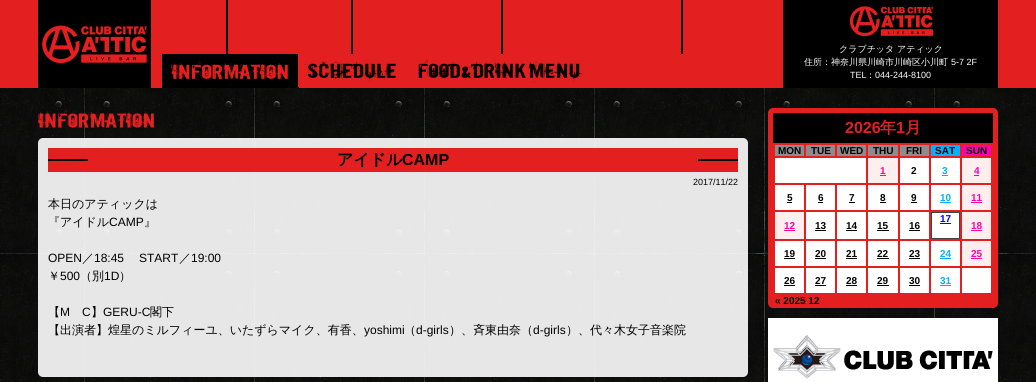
import math
import cairo


def use_color(cr, r, g, b):
  cr.set_source_rgb(r / 255, g / 255, b / 255)

def text(cr, x, y, s, family, size, color, bold=False, italic=False):
  cr.select_font_face(family, cairo.FONT_SLANT_ITALIC if italic else cairo.FONT_SLANT_NORMAL, cairo.FONT_WEIGHT_BOLD if bold else cairo.FONT_WEIGHT_NORMAL)
  cr.set_font_size(size)
  use_color(cr, *color)
  cr.move_to(x, y)
  cr.show_text(s)

def box(cr, x, y, w, h, *color):
  use_color(cr, *color)
  cr.rectangle(x, y, w, h)
  cr.fill()

def round_rect(cr, x, y, w, h, r):
  cr.new_sub_path()
  for i, (u, v) in enumerate([(x + w - r, y + h - r), (x + r, y + h - r), (x + r, y + r), (x + w - r, y + r)]):
    cr.arc(u, v, r, i * math.pi / 2, (i + 1) * math.pi / 2)
  cr.close_path()

def picture(cr, path, x, y, w, h):
  cr.save()
  cr.set_source_surface(cairo.ImageSurface.create_from_png(path), x, y)
  cr.rectangle(x, y, w, h)
  cr.fill()
  cr.restore()

def draw(cr):
  use_color(cr, 255, 255, 255)
  cr.paint()
  box(cr, 0, 0, 1036, 88, 228, 31, 31)
  picture(cr, "img_01.png", 38, 0, 113, 88)
  box(cr, 226, 0, 2, 54, 0, 0, 0)
  box(cr, 351, 0, 2, 54, 0, 0, 0)
  box(cr, 501, 0, 2, 54, 0, 0, 0)
  box(cr, 681, 0, 2, 54, 0, 0, 0)
  picture(cr, "img_02.png", 162, 54, 137, 34)
  picture(cr, "img_03.png", 298, 54, 98, 33)
  picture(cr, "img_04.png", 418, 58, 166, 25)
  picture(cr, "img_05.png", 783, 0, 215, 88)
  picture(cr, "img_06.png", 0, 88, 1036, 294)
  picture(cr, "img_07.png", 38, 108, 116, 21)
  cr.set_source_rgba(1, 1, 1, 0.9)
  round_rect(cr, 38, 138, 710, 239, 5)
  cr.fill()
  box(cr, 48, 148, 690, 24, 228, 31, 31)
  picture(cr, "img_08.png", 48, 159, 690, 2)
  round_rect(cr, 768, 108, 230, 200, 5)
  cr.fill()
  box(cr, 773, 113, 220, 30, 0, 0, 0)
  box(cr, 775, 145, 29, 11, 144, 139, 139)
  box(cr, 806, 145, 29, 11, 144, 139, 139)
  box(cr, 837, 145, 29, 11, 144, 139, 139)
  box(cr, 868, 145, 30, 11, 144, 139, 139)
  box(cr, 900, 145, 29, 11, 144, 139, 139)
  box(cr, 931, 145, 29, 11, 0, 177, 255)
  box(cr, 962, 145, 29, 11, 255, 0, 169)
  box(cr, 775, 158, 91, 25, 255, 255, 255)
  box(cr, 868, 158, 30, 25, 255, 238, 238)
  box(cr, 880, 175, 6, 1, 255, 0, 169)
  box(cr, 900, 158, 29, 25, 255, 255, 255)
  box(cr, 931, 158, 29, 25, 255, 255, 255)
  box(cr, 942, 175, 6, 1, 0, 177, 255)
  box(cr, 962, 158, 29, 25, 255, 238, 238)
  box(cr, 974, 175, 5, 1, 255, 0, 169)
  box(cr, 775, 185, 29, 25, 255, 255, 255)
  box(cr, 787, 202, 5, 1, 0, 0, 0)
  box(cr, 806, 185, 29, 25, 255, 255, 255)
  box(cr, 818, 202, 5, 1, 0, 0, 0)
  box(cr, 837, 185, 29, 25, 255, 255, 255)
  box(cr, 849, 202, 6, 1, 0, 0, 0)
  box(cr, 868, 185, 30, 25, 255, 255, 255)
  box(cr, 880, 202, 6, 1, 0, 0, 0)
  box(cr, 900, 185, 29, 25, 255, 255, 255)
  box(cr, 911, 202, 6, 1, 0, 0, 0)
  box(cr, 931, 185, 29, 25, 255, 255, 255)
  box(cr, 940, 202, 11, 1, 0, 177, 255)
  box(cr, 962, 185, 29, 25, 255, 238, 238)
  box(cr, 971, 202, 11, 1, 255, 0, 169)
  use_color(cr, 255, 255, 255)
  cr.rectangle(931.5, 212.5, 28, 26)
  cr.fill_preserve()
  use_color(cr, 68, 68, 68)
  cr.set_line_width(1)
  cr.stroke()
  box(cr, 940, 223, 11, 1, 0, 0, 255)
  box(cr, 775, 212, 29, 27, 255, 238, 238)
  box(cr, 784, 230, 11, 1, 255, 0, 169)
  box(cr, 806, 212, 29, 27, 255, 255, 255)
  box(cr, 815, 230, 11, 1, 0, 0, 0)
  box(cr, 837, 212, 29, 27, 255, 255, 255)
  box(cr, 846, 230, 11, 1, 0, 0, 0)
  box(cr, 868, 212, 30, 27, 255, 255, 255)
  box(cr, 877, 230, 12, 1, 0, 0, 0)
  box(cr, 900, 212, 29, 27, 255, 255, 255)
  box(cr, 909, 230, 11, 1, 0, 0, 0)
  box(cr, 962, 212, 29, 27, 255, 238, 238)
  box(cr, 971, 230, 11, 1, 255, 0, 169)
  box(cr, 775, 241, 29, 25, 255, 255, 255)
  box(cr, 784, 258, 11, 1, 0, 0, 0)
  box(cr, 806, 241, 29, 25, 255, 255, 255)
  box(cr, 815, 258, 11, 1, 0, 0, 0)
  box(cr, 837, 241, 29, 25, 255, 255, 255)
  box(cr, 846, 258, 11, 1, 0, 0, 0)
  box(cr, 868, 241, 30, 25, 255, 255, 255)
  box(cr, 877, 258, 12, 1, 0, 0, 0)
  box(cr, 900, 241, 29, 25, 255, 255, 255)
  box(cr, 909, 258, 11, 1, 0, 0, 0)
  box(cr, 931, 241, 29, 25, 255, 255, 255)
  box(cr, 940, 258, 11, 1, 0, 177, 255)
  box(cr, 962, 241, 29, 25, 255, 238, 238)
  box(cr, 971, 258, 11, 1, 255, 0, 169)
  box(cr, 775, 268, 29, 25, 255, 255, 255)
  box(cr, 784, 285, 11, 1, 0, 0, 0)
  box(cr, 806, 268, 29, 25, 255, 255, 255)
  box(cr, 815, 285, 11, 1, 0, 0, 0)
  box(cr, 837, 268, 29, 25, 255, 255, 255)
  box(cr, 846, 285, 11, 1, 0, 0, 0)
  box(cr, 868, 268, 30, 25, 255, 255, 255)
  box(cr, 877, 285, 12, 1, 0, 0, 0)
  box(cr, 900, 268, 29, 25, 255, 255, 255)
  box(cr, 909, 285, 11, 1, 0, 0, 0)
  box(cr, 931, 268, 29, 25, 255, 255, 255)
  box(cr, 940, 285, 11, 1, 0, 177, 255)
  box(cr, 962, 268, 29, 25, 255, 255, 255)
  picture(cr, "img_09.png", 768, 318, 230, 64)
  text(cr, 839, 52, "クラブチッタ アティック", "WenQuanYi Zen Hei Medium", 9, (255, 255, 255))
  text(cr, 804, 65, "住所：神奈川県川崎市川崎区小川町", "WenQuanYi Zen Hei Medium", 9, (255, 255, 255))
  text(cr, 951, 65, "5-7 2F", "Liberation Sans", 9, (255, 255, 255))
  text(cr, 850, 78, "TEL", "Liberation Sans", 9, (255, 255, 255))
  text(cr, 866, 78, "：", "WenQuanYi Zen Hei Medium", 9, (255, 255, 255))
  text(cr, 875, 78, "044-244-8100", "Liberation Sans", 9, (255, 255, 255))
  text(cr, 337, 165, "アイドル", "WenQuanYi Zen Hei", 16, (0, 0, 0), bold=True)
  text(cr, 402, 165, "CAMP", "Liberation Sans", 16, (0, 0, 0), bold=True)
  text(cr, 693, 185, "2017/11/22", "Liberation Sans", 9, (0, 0, 0))
  text(cr, 48, 208, "本日のアティックは", "WenQuanYi Zen Hei Medium", 12, (0, 0, 0))
  text(cr, 48, 226, "『アイドル", "WenQuanYi Zen Hei Medium", 12, (0, 0, 0))
  text(cr, 109, 226, "CAMP", "Liberation Sans", 12, (0, 0, 0))
  text(cr, 144, 226, "』", "WenQuanYi Zen Hei Medium", 12, (0, 0, 0))
  text(cr, 48, 262, "OPEN", "Liberation Sans", 12, (0, 0, 0))
  text(cr, 82, 262, "／", "WenQuanYi Zen Hei Medium", 12, (0, 0, 0))
  text(cr, 94, 262, "18:45", "Liberation Sans", 12, (0, 0, 0))
  text(cr, 139, 262, "START", "Liberation Sans", 12, (0, 0, 0))
  text(cr, 179, 262, "／", "WenQuanYi Zen Hei Medium", 12, (0, 0, 0))
  text(cr, 191, 262, "19:00", "Liberation Sans", 12, (0, 0, 0))
  text(cr, 48, 280, "￥", "WenQuanYi Zen Hei Medium", 12, (0, 0, 0))
  text(cr, 60, 280, "500", "Liberation Sans", 12, (0, 0, 0))
  text(cr, 80, 280, "（別", "WenQuanYi Zen Hei Medium", 12, (0, 0, 0))
  text(cr, 104, 280, "1D", "Liberation Sans", 12, (0, 0, 0))
  text(cr, 119, 280, "）", "WenQuanYi Zen Hei Medium", 12, (0, 0, 0))
  text(cr, 48, 316, "【", "WenQuanYi Zen Hei Medium", 12, (0, 0, 0))
  text(cr, 60, 316, "M", "Liberation Sans", 12, (0, 0, 0))
  text(cr, 82, 316, "C", "Liberation Sans", 12, (0, 0, 0))
  text(cr, 91, 316, "】", "WenQuanYi Zen Hei Medium", 12, (0, 0, 0))
  text(cr, 103, 316, "GERU-C", "Liberation Sans", 12, (0, 0, 0))
  text(cr, 150, 316, "閣下", "WenQuanYi Zen Hei Medium", 12, (0, 0, 0))
  text(cr, 48, 334, "【出演者】煌星のミルフィーユ、いたずらマイク、有香、", "WenQuanYi Zen Hei Medium", 12, (0, 0, 0))
  text(cr, 364, 334, "yoshimi", "Liberation Sans", 12, (0, 0, 0))
  text(cr, 404, 334, "（", "WenQuanYi Zen Hei Medium", 12, (0, 0, 0))
  text(cr, 416, 334, "d-girls", "Liberation Sans", 12, (0, 0, 0))
  text(cr, 449, 334, "）、斉東由奈（", "WenQuanYi Zen Hei Medium", 12, (0, 0, 0))
  text(cr, 533, 334, "d-girls", "Liberation Sans", 12, (0, 0, 0))
  text(cr, 566, 334, "）、代々木女子音楽院", "WenQuanYi Zen Hei Medium", 12, (0, 0, 0))
  text(cr, 845, 133, "2026", "Liberation Sans", 16, (228, 31, 31), bold=True)
  text(cr, 880, 133, "年", "WenQuanYi Zen Hei", 16, (228, 31, 31), bold=True)
  text(cr, 896, 133, "1", "Liberation Sans", 16, (228, 31, 31), bold=True)
  text(cr, 905, 133, "月", "WenQuanYi Zen Hei", 16, (228, 31, 31), bold=True)
  text(cr, 778, 154, "MON", "Liberation Sans", 10, (0, 0, 0), bold=True)
  text(cr, 811, 154, "TUE", "Liberation Sans", 10, (0, 0, 0), bold=True)
  text(cr, 840, 154, "WED", "Liberation Sans", 10, (0, 0, 0), bold=True)
  text(cr, 873, 154, "THU", "Liberation Sans", 10, (0, 0, 0), bold=True)
  text(cr, 906, 154, "FRI", "Liberation Sans", 10, (0, 0, 0), bold=True)
  text(cr, 935, 154, "SAT", "Liberation Sans", 10, (0, 0, 0), bold=True)
  text(cr, 966, 154, "SUN", "Liberation Sans", 10, (0, 0, 0), bold=True)
  text(cr, 880, 174, "1", "Liberation Sans", 10, (255, 0, 169), bold=True)
  text(cr, 911, 174, "2", "Liberation Sans", 10, (0, 0, 0), bold=True)
  text(cr, 942, 174, "3", "Liberation Sans", 10, (0, 177, 255), bold=True)
  text(cr, 974, 174, "4", "Liberation Sans", 10, (255, 0, 169), bold=True)
  text(cr, 787, 201, "5", "Liberation Sans", 10, (0, 0, 0), bold=True)
  text(cr, 818, 201, "6", "Liberation Sans", 10, (0, 0, 0), bold=True)
  text(cr, 849, 201, "7", "Liberation Sans", 10, (0, 0, 0), bold=True)
  text(cr, 880, 201, "8", "Liberation Sans", 10, (0, 0, 0), bold=True)
  text(cr, 911, 201, "9", "Liberation Sans", 10, (0, 0, 0), bold=True)
  text(cr, 940, 201, "10", "Liberation Sans", 10, (0, 177, 255), bold=True)
  text(cr, 971, 201, "11", "Liberation Sans", 10, (255, 0, 169), bold=True)
  text(cr, 940, 222, "17", "Liberation Sans", 10, (0, 0, 255), bold=True)
  text(cr, 784, 229, "12", "Liberation Sans", 10, (255, 0, 169), bold=True)
  text(cr, 815, 229, "13", "Liberation Sans", 10, (0, 0, 0), bold=True)
  text(cr, 846, 229, "14", "Liberation Sans", 10, (0, 0, 0), bold=True)
  text(cr, 877, 229, "15", "Liberation Sans", 10, (0, 0, 0), bold=True)
  text(cr, 909, 229, "16", "Liberation Sans", 10, (0, 0, 0), bold=True)
  text(cr, 971, 229, "18", "Liberation Sans", 10, (255, 0, 169), bold=True)
  text(cr, 784, 257, "19", "Liberation Sans", 10, (0, 0, 0), bold=True)
  text(cr, 815, 257, "20", "Liberation Sans", 10, (0, 0, 0), bold=True)
  text(cr, 846, 257, "21", "Liberation Sans", 10, (0, 0, 0), bold=True)
  text(cr, 877, 257, "22", "Liberation Sans", 10, (0, 0, 0), bold=True)
  text(cr, 909, 257, "23", "Liberation Sans", 10, (0, 0, 0), bold=True)
  text(cr, 940, 257, "24", "Liberation Sans", 10, (0, 177, 255), bold=True)
  text(cr, 971, 257, "25", "Liberation Sans", 10, (255, 0, 169), bold=True)
  text(cr, 784, 284, "26", "Liberation Sans", 10, (0, 0, 0), bold=True)
  text(cr, 815, 284, "27", "Liberation Sans", 10, (0, 0, 0), bold=True)
  text(cr, 846, 284, "28", "Liberation Sans", 10, (0, 0, 0), bold=True)
  text(cr, 877, 284, "29", "Liberation Sans", 10, (0, 0, 0), bold=True)
  text(cr, 909, 284, "30", "Liberation Sans", 10, (0, 0, 0), bold=True)
  text(cr, 940, 284, "31", "Liberation Sans", 10, (0, 177, 255), bold=True)
  text(cr, 775, 304, "« 2025 12", "Liberation Sans", 10, (0, 0, 0), bold=True)


surface = cairo.ImageSurface(cairo.FORMAT_RGB24, 1036, 382)
cr = cairo.Context(surface)
options = cairo.FontOptions()
options.set_hint_metrics(cairo.HINT_METRICS_OFF)
options.set_hint_style(cairo.HINT_STYLE_NONE)
cr.set_font_options(options)
cr.set_miter_limit(4)
draw(cr)
surface.write_to_png("out.png")
